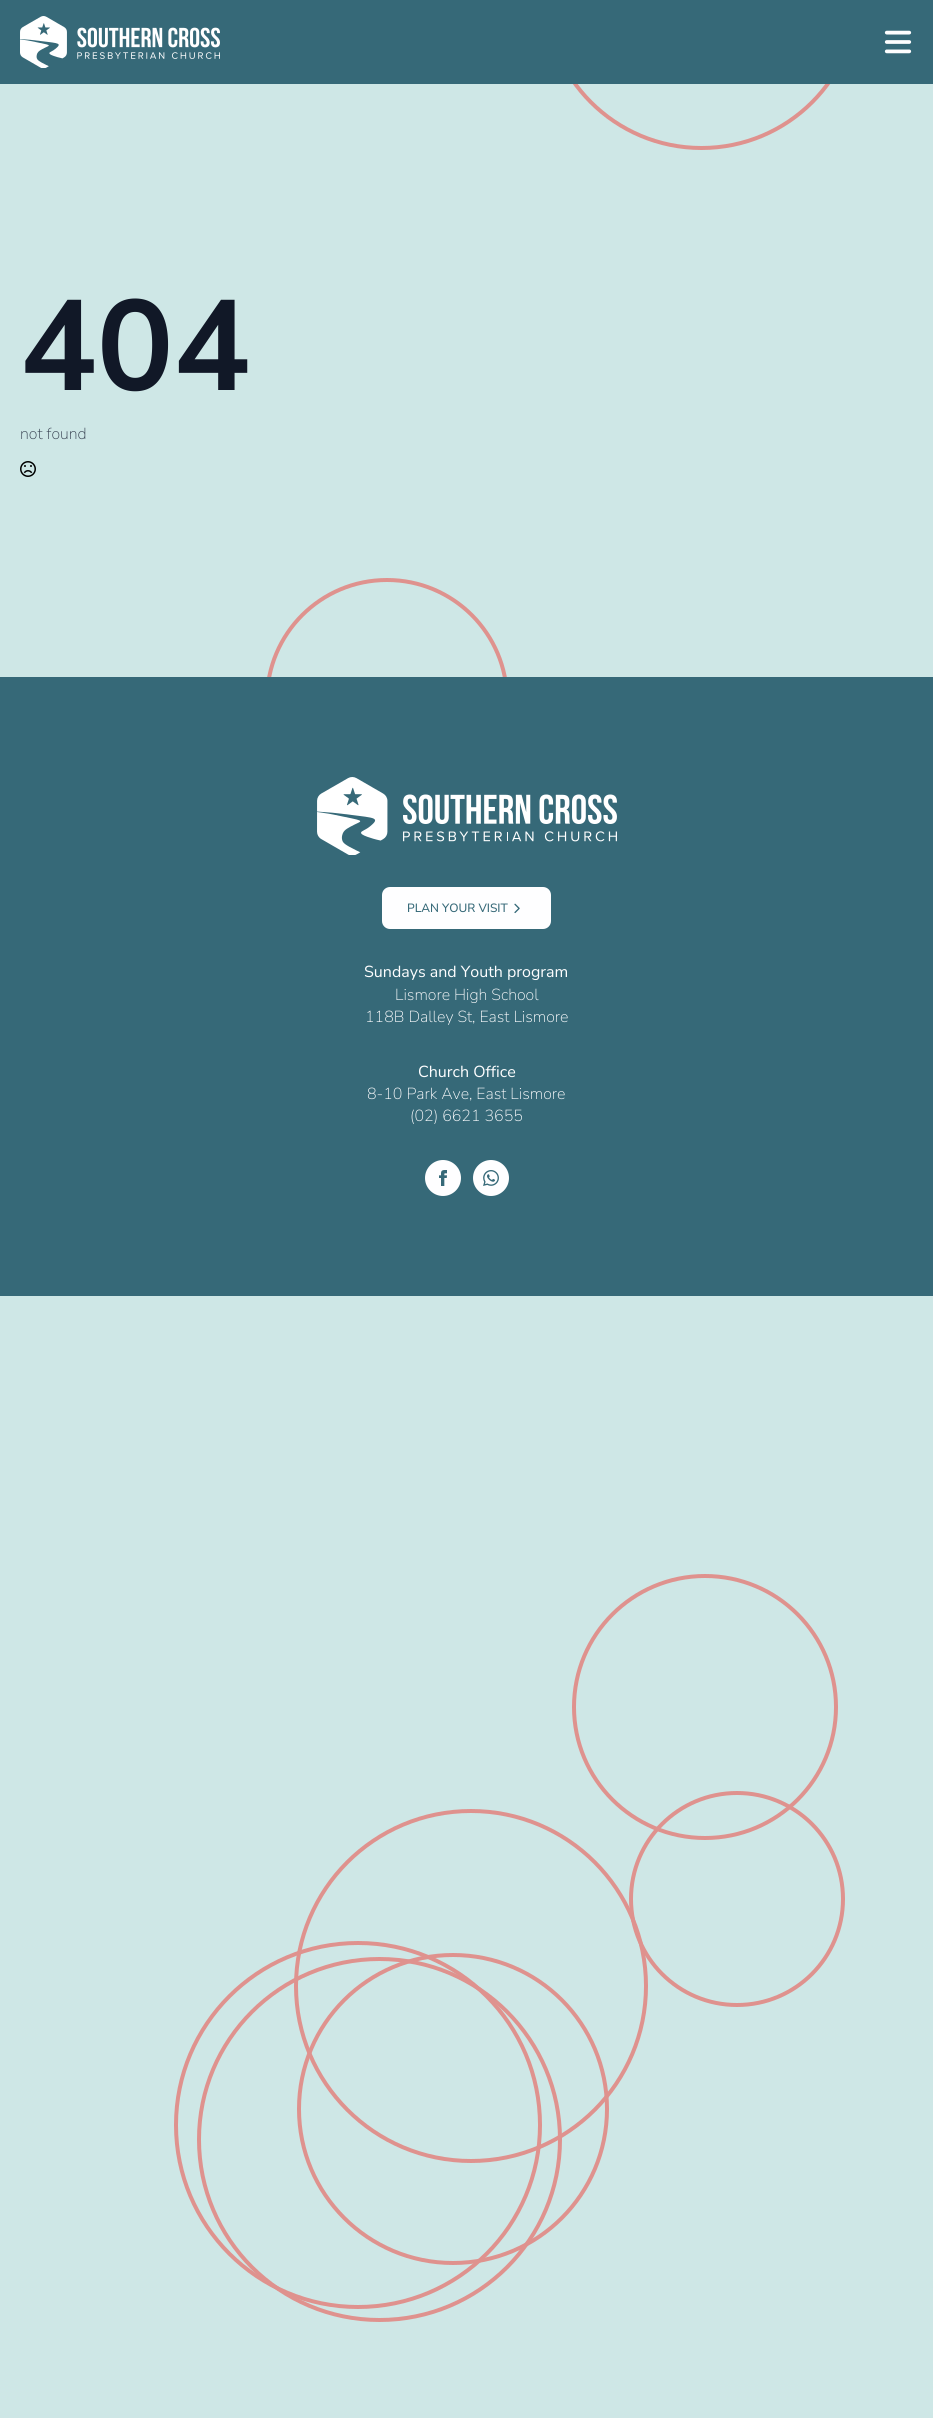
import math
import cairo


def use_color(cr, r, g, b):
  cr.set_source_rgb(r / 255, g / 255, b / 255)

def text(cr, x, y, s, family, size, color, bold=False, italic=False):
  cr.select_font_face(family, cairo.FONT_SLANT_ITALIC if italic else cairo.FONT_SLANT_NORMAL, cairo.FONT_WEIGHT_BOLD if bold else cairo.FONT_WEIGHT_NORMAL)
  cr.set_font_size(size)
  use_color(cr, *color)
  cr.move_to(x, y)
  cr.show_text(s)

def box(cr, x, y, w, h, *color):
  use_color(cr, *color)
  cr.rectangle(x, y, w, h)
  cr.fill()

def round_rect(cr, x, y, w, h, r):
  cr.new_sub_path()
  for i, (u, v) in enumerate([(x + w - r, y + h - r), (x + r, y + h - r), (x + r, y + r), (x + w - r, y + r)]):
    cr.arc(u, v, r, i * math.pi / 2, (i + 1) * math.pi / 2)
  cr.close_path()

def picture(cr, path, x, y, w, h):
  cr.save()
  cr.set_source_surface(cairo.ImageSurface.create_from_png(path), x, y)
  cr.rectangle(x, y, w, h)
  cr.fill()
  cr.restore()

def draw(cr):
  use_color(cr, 206, 231, 230)
  cr.paint()
  round_rect(cr, 545, -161, 313, 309, 156.5)
  use_color(cr, 223, 146, 142)
  cr.set_line_width(4)
  cr.stroke()
  box(cr, 0, 0, 933, 84, 54, 105, 120)
  cr.arc(387, 700, 120, 0, 2 * math.pi)
  use_color(cr, 223, 146, 142)
  cr.stroke()
  cr.arc(705, 1707, 131, 0, 2 * math.pi)
  cr.stroke()
  cr.arc(737, 1899, 106, 0, 2 * math.pi)
  cr.stroke()
  cr.arc(379.5, 2139.5, 180.5, 0, 2 * math.pi)
  cr.stroke()
  cr.arc(453, 2109, 154, 0, 2 * math.pi)
  cr.stroke()
  cr.arc(358, 2125, 182, 0, 2 * math.pi)
  cr.stroke()
  cr.arc(471, 1986, 175, 0, 2 * math.pi)
  cr.stroke()
  picture(cr, "img_01.png", 20, 16, 200, 52)
  picture(cr, "img_02.png", 884, 30, 28, 24)
  picture(cr, "img_03.png", 20, 461, 16, 16)
  box(cr, 0, 677, 933, 619, 54, 105, 120)
  picture(cr, "img_04.png", 317, 777, 300, 78)
  use_color(cr, 254, 254, 255)
  round_rect(cr, 382, 887, 169, 42, 8)
  cr.fill()
  picture(cr, "img_05.png", 514, 903, 6, 11)
  cr.arc(443, 1178, 18, 0, 2 * math.pi)
  cr.fill()
  picture(cr, "img_06.png", 439, 1170, 8, 16)
  cr.arc(491, 1178, 18, 0, 2 * math.pi)
  cr.fill()
  picture(cr, "img_07.png", 483, 1170, 16, 16)
  text(cr, 20, 390, "404", "Nunito Sans", 128, (17, 24, 39), bold=True)
  text(cr, 20, 439, "not found", "Nunito Sans ExtraLight", 16, (55, 65, 81))
  text(cr, 407, 912, "PLAN YOUR VISIT", "Nunito Sans Medium", 12, (54, 105, 120))
  text(cr, 364, 977, "Sundays and Youth program", "Nunito Sans", 16, (254, 254, 255))
  text(cr, 395, 1000, "Lismore High School", "Nunito Sans ExtraLight", 16, (254, 254, 255))
  text(cr, 365, 1022, "118B Dalley St, East Lismore", "Nunito Sans ExtraLight", 16, (254, 254, 255))
  text(cr, 418, 1077, "Church Office", "Nunito Sans", 16, (254, 254, 255))
  text(cr, 367, 1099, "8-10 Park Ave, East Lismore", "Nunito Sans ExtraLight", 16, (254, 254, 255))
  text(cr, 410, 1121, "(02) 6621 3655", "Nunito Sans ExtraLight", 16, (254, 254, 255))


surface = cairo.ImageSurface(cairo.FORMAT_RGB24, 933, 2418)
cr = cairo.Context(surface)
options = cairo.FontOptions()
options.set_hint_metrics(cairo.HINT_METRICS_OFF)
options.set_hint_style(cairo.HINT_STYLE_NONE)
cr.set_font_options(options)
cr.set_miter_limit(4)
draw(cr)
surface.write_to_png("out.png")
